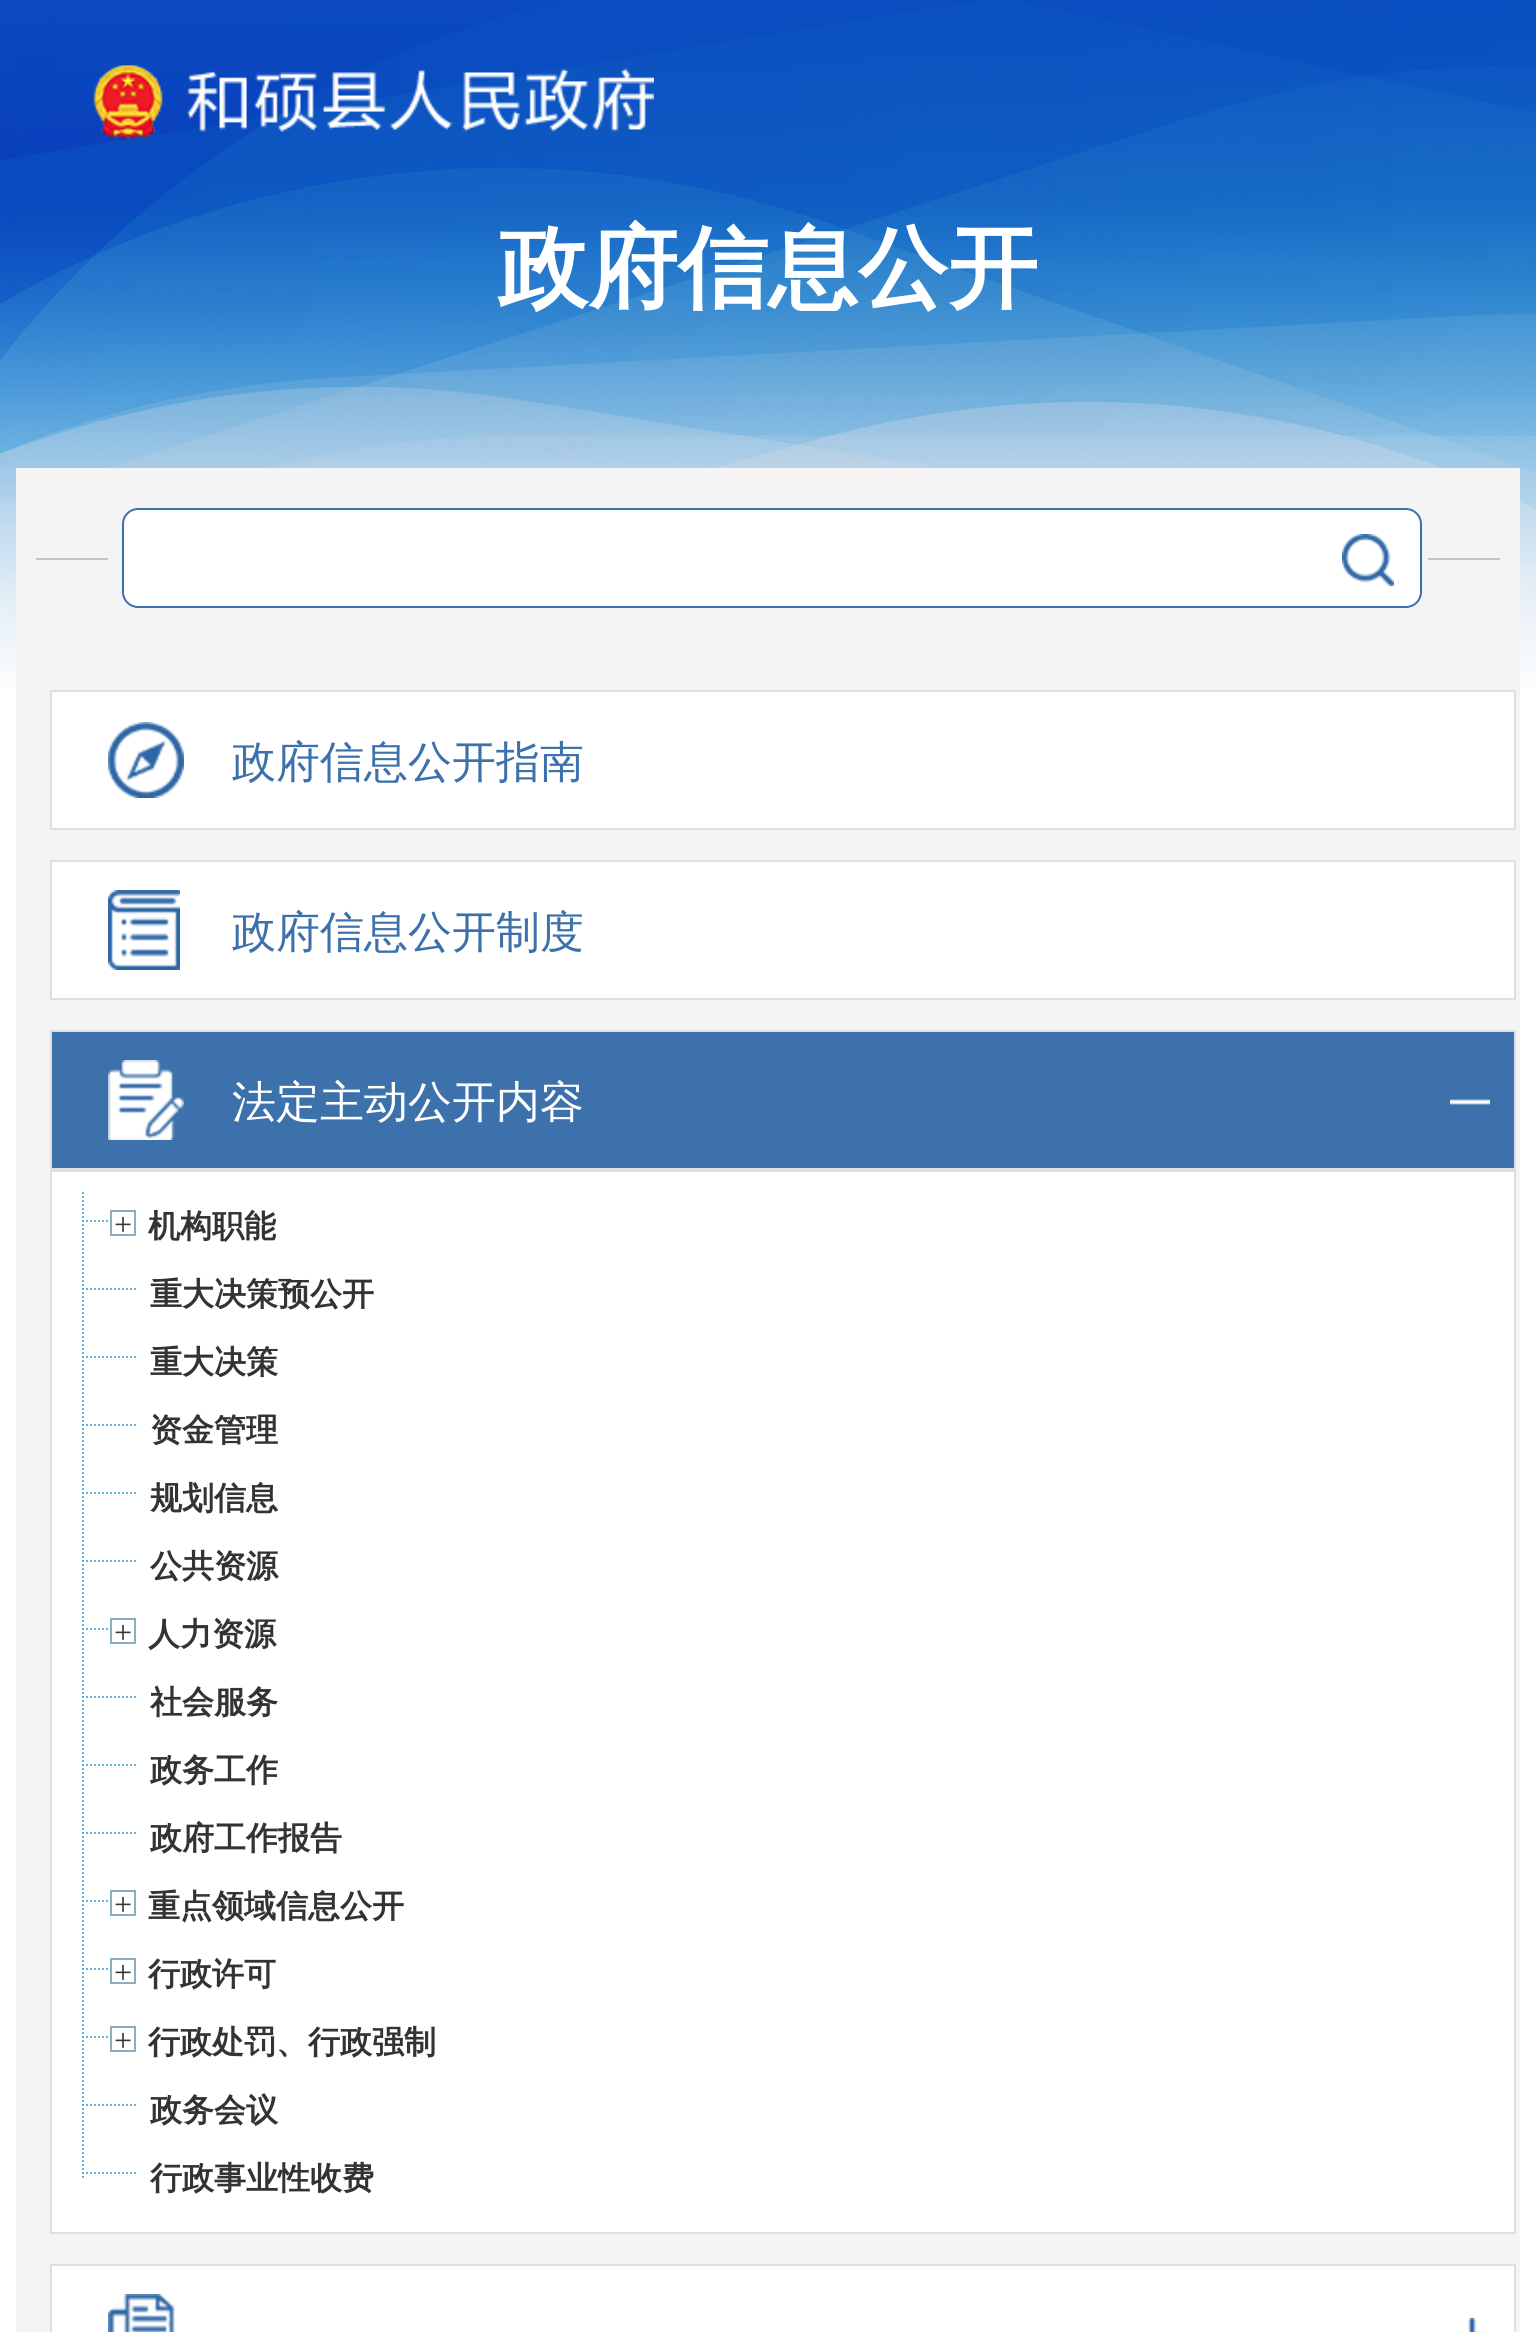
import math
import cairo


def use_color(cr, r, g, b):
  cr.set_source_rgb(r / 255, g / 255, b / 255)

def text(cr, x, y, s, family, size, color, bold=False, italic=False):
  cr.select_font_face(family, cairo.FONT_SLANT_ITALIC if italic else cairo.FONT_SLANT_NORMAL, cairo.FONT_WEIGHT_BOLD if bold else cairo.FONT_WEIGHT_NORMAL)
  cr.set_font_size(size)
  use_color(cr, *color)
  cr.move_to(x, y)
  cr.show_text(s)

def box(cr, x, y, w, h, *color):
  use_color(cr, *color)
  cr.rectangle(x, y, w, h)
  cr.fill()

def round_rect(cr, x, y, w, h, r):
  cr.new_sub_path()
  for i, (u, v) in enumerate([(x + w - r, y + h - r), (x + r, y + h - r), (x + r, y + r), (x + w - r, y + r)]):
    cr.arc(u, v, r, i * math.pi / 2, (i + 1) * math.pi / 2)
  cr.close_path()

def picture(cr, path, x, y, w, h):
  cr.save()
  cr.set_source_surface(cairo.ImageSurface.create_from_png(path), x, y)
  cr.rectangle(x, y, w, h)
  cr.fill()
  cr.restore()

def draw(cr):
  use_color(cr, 255, 255, 255)
  cr.paint()
  picture(cr, "img_01.png", 0, 0, 1536, 688)
  picture(cr, "img_02.png", 93, 65, 561, 74)
  box(cr, 16, 468, 1504, 1864, 244, 244, 244)
  box(cr, 36, 558, 1464, 2, 195, 195, 195)
  box(cr, 108, 558, 1320, 2, 244, 244, 244)
  use_color(cr, 255, 255, 255)
  round_rect(cr, 123, 509, 1298, 98, 15)
  cr.fill_preserve()
  use_color(cr, 60, 113, 171)
  cr.stroke()
  picture(cr, "img_03.png", 1342, 534, 52, 52)
  box(cr, 52, 692, 1462, 136, 255, 255, 255)
  picture(cr, "img_04.png", 108, 722, 76, 76)
  cr.rectangle(51, 691, 1464, 138)
  use_color(cr, 223, 223, 223)
  cr.stroke()
  box(cr, 52, 862, 1462, 136, 255, 255, 255)
  picture(cr, "img_05.png", 108, 890, 72, 80)
  cr.rectangle(51, 861, 1464, 138)
  use_color(cr, 223, 223, 223)
  cr.stroke()
  box(cr, 52, 1032, 1462, 136, 60, 113, 171)
  picture(cr, "img_06.png", 108, 1060, 76, 80)
  cr.rectangle(51, 1031, 1464, 138)
  use_color(cr, 223, 223, 223)
  cr.stroke()
  picture(cr, "img_07.png", 1450, 1099, 40, 6)
  use_color(cr, 255, 255, 255)
  cr.rectangle(51, 1171, 1464, 1062)
  cr.fill_preserve()
  use_color(cr, 222, 222, 222)
  cr.stroke()
  cr.save()
  cr.rectangle(82, 1192, 1402, 1020)
  cr.clip()
  cr.new_path()
  cr.move_to(83, 1152)
  cr.line_to(83, 2180)
  use_color(cr, 103, 178, 221)
  cr.set_dash([2, 2])
  cr.stroke()
  cr.new_path()
  cr.move_to(74, 1221)
  cr.line_to(110, 1221)
  cr.stroke()
  cr.restore()
  cr.rectangle(111, 1211, 24, 24)
  use_color(cr, 139, 174, 191)
  cr.stroke()
  cr.save()
  cr.rectangle(82, 1192, 1402, 1020)
  cr.clip()
  cr.new_path()
  cr.move_to(74, 1289)
  cr.line_to(138, 1289)
  use_color(cr, 103, 178, 221)
  cr.set_dash([2, 2])
  cr.stroke()
  cr.new_path()
  cr.move_to(74, 1357)
  cr.line_to(138, 1357)
  cr.stroke()
  cr.new_path()
  cr.move_to(74, 1425)
  cr.line_to(138, 1425)
  cr.stroke()
  cr.new_path()
  cr.move_to(74, 1493)
  cr.line_to(138, 1493)
  cr.stroke()
  cr.new_path()
  cr.move_to(74, 1561)
  cr.line_to(138, 1561)
  cr.stroke()
  cr.new_path()
  cr.move_to(74, 1629)
  cr.line_to(110, 1629)
  cr.stroke()
  cr.restore()
  cr.rectangle(111, 1619, 24, 24)
  cr.stroke()
  cr.save()
  cr.rectangle(82, 1192, 1402, 1020)
  cr.clip()
  cr.new_path()
  cr.move_to(74, 1697)
  cr.line_to(138, 1697)
  use_color(cr, 103, 178, 221)
  cr.set_dash([2, 2])
  cr.stroke()
  cr.new_path()
  cr.move_to(74, 1765)
  cr.line_to(138, 1765)
  cr.stroke()
  cr.new_path()
  cr.move_to(74, 1833)
  cr.line_to(138, 1833)
  cr.stroke()
  cr.new_path()
  cr.move_to(74, 1901)
  cr.line_to(110, 1901)
  cr.stroke()
  cr.restore()
  cr.rectangle(111, 1891, 24, 24)
  cr.stroke()
  cr.save()
  cr.rectangle(82, 1192, 1402, 1020)
  cr.clip()
  cr.new_path()
  cr.move_to(74, 1969)
  cr.line_to(110, 1969)
  use_color(cr, 103, 178, 221)
  cr.set_dash([2, 2])
  cr.stroke()
  cr.restore()
  cr.rectangle(111, 1959, 24, 24)
  cr.stroke()
  cr.save()
  cr.rectangle(82, 1192, 1402, 1020)
  cr.clip()
  cr.new_path()
  cr.move_to(74, 2037)
  cr.line_to(110, 2037)
  use_color(cr, 103, 178, 221)
  cr.set_dash([2, 2])
  cr.stroke()
  cr.restore()
  cr.rectangle(111, 2027, 24, 24)
  cr.stroke()
  cr.save()
  cr.rectangle(82, 1192, 1402, 1020)
  cr.clip()
  cr.new_path()
  cr.move_to(74, 2105)
  cr.line_to(138, 2105)
  use_color(cr, 103, 178, 221)
  cr.set_dash([2, 2])
  cr.stroke()
  cr.new_path()
  cr.move_to(74, 2173)
  cr.line_to(138, 2173)
  cr.stroke()
  cr.restore()
  box(cr, 52, 2266, 1462, 66, 255, 255, 255)
  picture(cr, "img_08.png", 108, 2294, 67, 38)
  cr.rectangle(51, 2265, 1464, 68)
  use_color(cr, 223, 223, 223)
  cr.stroke()
  picture(cr, "img_09.png", 1456, 2318, 32, 14)
  text(cr, 498, 299, "政府信息公开", "WenQuanYi Zen Hei", 90, (255, 255, 255), bold=True)
  text(cr, 232, 777, "政府信息公开指南", "WenQuanYi Zen Hei Medium", 44, (60, 113, 171))
  text(cr, 232, 947, "政府信息公开制度", "WenQuanYi Zen Hei Medium", 44, (60, 113, 171))
  text(cr, 232, 1117, "法定主动公开内容", "WenQuanYi Zen Hei Medium", 44, (255, 255, 255))
  text(cr, 114, 1235, "+", "Liberation Serif", 32, (51, 51, 51))
  text(cr, 148, 1237, "机构职能", "WenQuanYi Zen Hei", 32, (51, 51, 51), bold=True)
  text(cr, 150, 1305, "重大决策预公开", "WenQuanYi Zen Hei", 32, (51, 51, 51), bold=True)
  text(cr, 150, 1373, "重大决策", "WenQuanYi Zen Hei", 32, (51, 51, 51), bold=True)
  text(cr, 150, 1441, "资金管理", "WenQuanYi Zen Hei", 32, (51, 51, 51), bold=True)
  text(cr, 150, 1509, "规划信息", "WenQuanYi Zen Hei", 32, (51, 51, 51), bold=True)
  text(cr, 150, 1577, "公共资源", "WenQuanYi Zen Hei", 32, (51, 51, 51), bold=True)
  text(cr, 114, 1643, "+", "Liberation Serif", 32, (51, 51, 51))
  text(cr, 148, 1645, "人力资源", "WenQuanYi Zen Hei", 32, (51, 51, 51), bold=True)
  text(cr, 150, 1713, "社会服务", "WenQuanYi Zen Hei", 32, (51, 51, 51), bold=True)
  text(cr, 150, 1781, "政务工作", "WenQuanYi Zen Hei", 32, (51, 51, 51), bold=True)
  text(cr, 150, 1849, "政府工作报告", "WenQuanYi Zen Hei", 32, (51, 51, 51), bold=True)
  text(cr, 114, 1915, "+", "Liberation Serif", 32, (51, 51, 51))
  text(cr, 148, 1917, "重点领域信息公开", "WenQuanYi Zen Hei", 32, (51, 51, 51), bold=True)
  text(cr, 114, 1983, "+", "Liberation Serif", 32, (51, 51, 51))
  text(cr, 148, 1985, "行政许可", "WenQuanYi Zen Hei", 32, (51, 51, 51), bold=True)
  text(cr, 114, 2051, "+", "Liberation Serif", 32, (51, 51, 51))
  text(cr, 148, 2053, "行政处罚、行政强制", "WenQuanYi Zen Hei", 32, (51, 51, 51), bold=True)
  text(cr, 150, 2121, "政务会议", "WenQuanYi Zen Hei", 32, (51, 51, 51), bold=True)
  text(cr, 150, 2189, "行政事业性收费", "WenQuanYi Zen Hei", 32, (51, 51, 51), bold=True)


surface = cairo.ImageSurface(cairo.FORMAT_RGB24, 1536, 2332)
cr = cairo.Context(surface)
options = cairo.FontOptions()
options.set_hint_metrics(cairo.HINT_METRICS_OFF)
options.set_hint_style(cairo.HINT_STYLE_NONE)
cr.set_font_options(options)
cr.set_miter_limit(4)
draw(cr)
surface.write_to_png("out.png")
